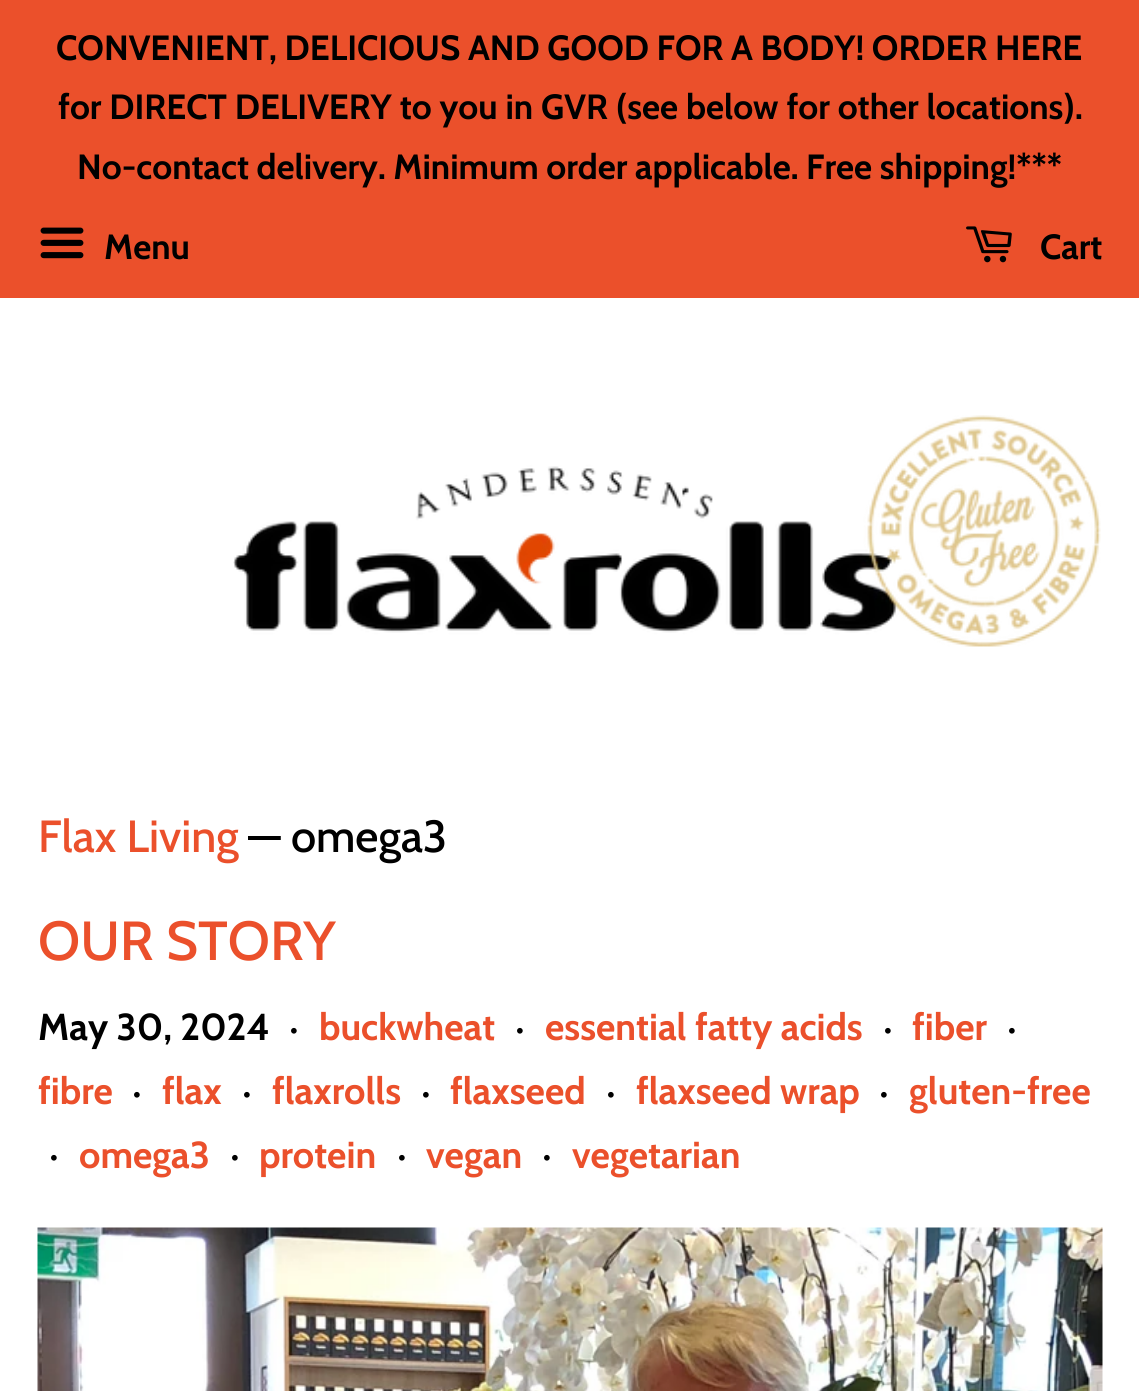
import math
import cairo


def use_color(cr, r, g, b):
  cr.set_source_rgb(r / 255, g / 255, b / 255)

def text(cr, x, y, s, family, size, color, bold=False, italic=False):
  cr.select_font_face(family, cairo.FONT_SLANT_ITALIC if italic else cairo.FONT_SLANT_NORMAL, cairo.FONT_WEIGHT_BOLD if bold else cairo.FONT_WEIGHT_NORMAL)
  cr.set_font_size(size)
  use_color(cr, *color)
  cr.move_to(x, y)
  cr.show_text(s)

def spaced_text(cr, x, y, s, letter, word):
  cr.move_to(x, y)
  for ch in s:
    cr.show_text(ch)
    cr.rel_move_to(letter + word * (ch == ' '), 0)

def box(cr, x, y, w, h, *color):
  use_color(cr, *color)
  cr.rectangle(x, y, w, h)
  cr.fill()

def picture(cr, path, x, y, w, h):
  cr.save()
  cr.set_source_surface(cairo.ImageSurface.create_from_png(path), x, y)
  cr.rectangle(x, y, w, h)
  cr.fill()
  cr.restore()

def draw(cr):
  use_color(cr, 255, 255, 255)
  cr.paint()
  box(cr, 0, 0, 1139, 298, 235, 80, 43)
  picture(cr, "img_01.png", 40, 227, 44, 32)
  picture(cr, "img_02.png", 966, 226, 46, 37)
  picture(cr, "img_03.png", 233, 415, 868, 232)
  picture(cr, "img_04.png", 37, 1227, 1066, 164)
  cr.select_font_face("Cabin", cairo.FONT_SLANT_NORMAL, cairo.FONT_WEIGHT_BOLD)
  cr.set_font_size(35)
  use_color(cr, 0, 0, 0)
  spaced_text(cr, 56, 60, "CONVENIENT, DELICIOUS AND GOOD FOR A BODY! ORDER HERE", 0, -0.25)
  text(cr, 58, 119, "for DIRECT DELIVERY to you in GVR (see below for other locations).", "Cabin", 35, (0, 0, 0), bold=True)
  spaced_text(cr, 77, 179, "No-contact delivery. Minimum order applicable. Free shipping!***", 0, -0.25)
  text(cr, 104, 259, "Menu", "Cabin", 35, (0, 0, 0), bold=True)
  text(cr, 1040, 259, "Cart", "Cabin", 35, (0, 0, 0), bold=True)
  text(cr, 38, 852, "Flax Living", "Cabin Medium", 45, (235, 80, 43))
  text(cr, 248, 852, "— omega3", "Cabin Medium", 45, (0, 0, 0))
  text(cr, 38, 960, "OUR STORY", "Cabin Medium", 55, (235, 80, 43))
  text(cr, 38, 1040, "May 30, 2024", "Cabin", 37.5, (0, 0, 0), bold=True)
  text(cr, 290, 1038, "•", "Cabin", 26, (0, 0, 0), bold=True)
  text(cr, 319, 1040, "buckwheat", "Cabin", 37.5, (235, 80, 43), bold=True)
  text(cr, 516, 1038, "•", "Cabin", 26, (0, 0, 0), bold=True)
  text(cr, 545, 1040, "essential fatty acids", "Cabin", 37.5, (235, 80, 43), bold=True)
  text(cr, 884, 1038, "•", "Cabin", 26, (0, 0, 0), bold=True)
  text(cr, 912, 1040, "fiber", "Cabin", 37.5, (235, 80, 43), bold=True)
  text(cr, 1008, 1038, "•", "Cabin", 26, (0, 0, 0), bold=True)
  text(cr, 38, 1104, "fibre", "Cabin", 37.5, (235, 80, 43), bold=True)
  text(cr, 133, 1102, "•", "Cabin", 26, (0, 0, 0), bold=True)
  text(cr, 162, 1104, "flax", "Cabin", 37.5, (235, 80, 43), bold=True)
  text(cr, 243, 1102, "•", "Cabin", 26, (0, 0, 0), bold=True)
  text(cr, 272, 1104, "flaxrolls", "Cabin", 37.5, (235, 80, 43), bold=True)
  text(cr, 422, 1102, "•", "Cabin", 26, (0, 0, 0), bold=True)
  text(cr, 450, 1104, "flaxseed", "Cabin", 37.5, (235, 80, 43), bold=True)
  text(cr, 607, 1102, "•", "Cabin", 26, (0, 0, 0), bold=True)
  text(cr, 636, 1104, "flaxseed wrap", "Cabin", 37.5, (235, 80, 43), bold=True)
  text(cr, 880, 1102, "•", "Cabin", 26, (0, 0, 0), bold=True)
  text(cr, 909, 1104, "gluten-free", "Cabin", 37.5, (235, 80, 43), bold=True)
  text(cr, 50, 1165, "•", "Cabin", 26, (0, 0, 0), bold=True)
  text(cr, 79, 1168, "omega3", "Cabin", 37.5, (235, 80, 43), bold=True)
  text(cr, 231, 1165, "•", "Cabin", 26, (0, 0, 0), bold=True)
  text(cr, 259, 1168, "protein", "Cabin", 37.5, (235, 80, 43), bold=True)
  text(cr, 398, 1165, "•", "Cabin", 26, (0, 0, 0), bold=True)
  text(cr, 426, 1168, "vegan", "Cabin", 37.5, (235, 80, 43), bold=True)
  text(cr, 543, 1165, "•", "Cabin", 26, (0, 0, 0), bold=True)
  text(cr, 572, 1168, "vegetarian", "Cabin", 37.5, (235, 80, 43), bold=True)


surface = cairo.ImageSurface(cairo.FORMAT_RGB24, 1139, 1391)
cr = cairo.Context(surface)
options = cairo.FontOptions()
options.set_hint_metrics(cairo.HINT_METRICS_OFF)
options.set_hint_style(cairo.HINT_STYLE_NONE)
cr.set_font_options(options)
cr.set_miter_limit(4)
draw(cr)
surface.write_to_png("out.png")
